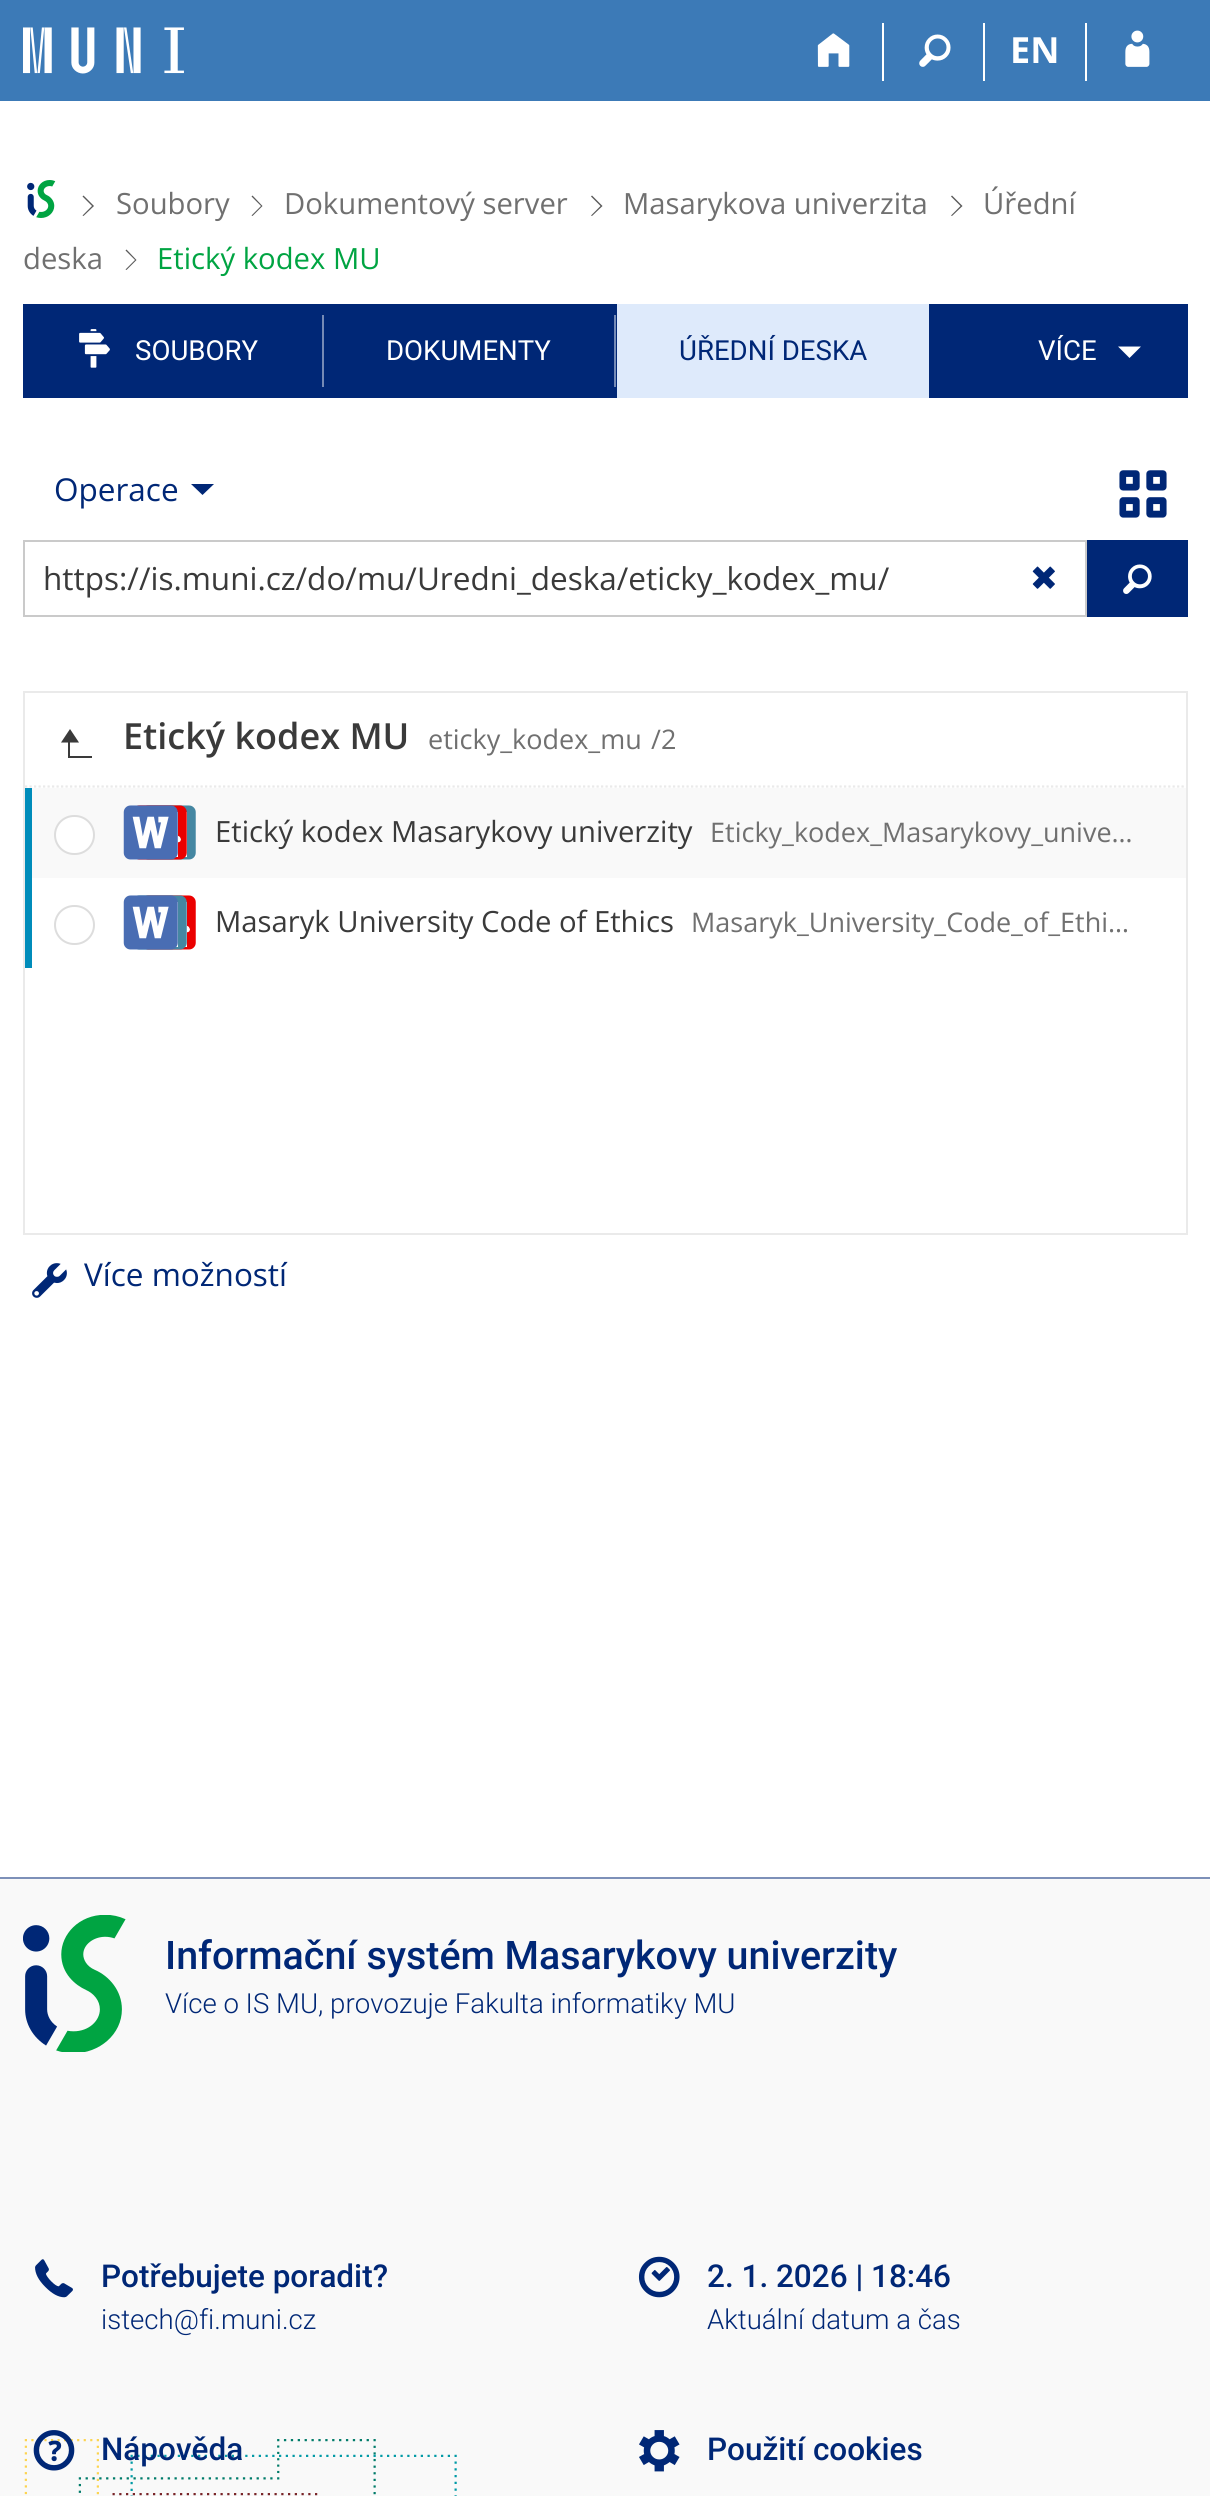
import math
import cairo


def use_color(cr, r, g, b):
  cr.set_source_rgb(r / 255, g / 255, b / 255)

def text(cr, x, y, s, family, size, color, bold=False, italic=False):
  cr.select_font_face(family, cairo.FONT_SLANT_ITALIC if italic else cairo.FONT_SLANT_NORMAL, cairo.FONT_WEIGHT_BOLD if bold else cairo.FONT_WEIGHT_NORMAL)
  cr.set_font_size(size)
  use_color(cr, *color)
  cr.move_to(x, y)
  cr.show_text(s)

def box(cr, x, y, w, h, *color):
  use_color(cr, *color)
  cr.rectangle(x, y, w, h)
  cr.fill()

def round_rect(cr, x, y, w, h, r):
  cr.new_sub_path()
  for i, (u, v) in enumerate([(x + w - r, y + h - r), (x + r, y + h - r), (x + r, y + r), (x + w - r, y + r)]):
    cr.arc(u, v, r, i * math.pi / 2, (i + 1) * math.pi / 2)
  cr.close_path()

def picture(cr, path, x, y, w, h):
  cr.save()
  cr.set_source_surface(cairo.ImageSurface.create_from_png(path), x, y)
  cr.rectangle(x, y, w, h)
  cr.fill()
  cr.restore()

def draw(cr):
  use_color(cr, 255, 255, 255)
  cr.paint()
  box(cr, 0, 0, 1210, 101, 60, 122, 183)
  picture(cr, "img_01.png", 23, 27, 161, 47)
  box(cr, 882, 23, 2, 58, 255, 255, 255)
  picture(cr, "img_02.png", 817, 33, 33, 34)
  box(cr, 983, 23, 2, 58, 255, 255, 255)
  picture(cr, "img_03.png", 919, 34, 32, 33)
  box(cr, 1085, 23, 2, 58, 255, 255, 255)
  picture(cr, "img_04.png", 1125, 30, 25, 37)
  picture(cr, "img_05.png", 27, 180, 29, 38)
  use_color(cr, 90, 90, 90)
  cr.new_path()
  cr.move_to(83.5, 216)
  cr.line_to(82.5, 215.5)
  cr.line_to(92, 206)
  cr.line_to(82.5, 196.5)
  cr.line_to(83.5, 195.5)
  cr.line_to(94, 206)
  cr.close_path()
  cr.fill()
  cr.new_path()
  cr.move_to(252.5, 216)
  cr.line_to(251.5, 215.5)
  cr.line_to(261, 206)
  cr.line_to(251.5, 196.5)
  cr.line_to(252.5, 195.5)
  cr.line_to(262.5, 206)
  cr.close_path()
  cr.fill()
  cr.new_path()
  cr.move_to(592, 216)
  cr.line_to(591, 215.5)
  cr.line_to(600.5, 206)
  cr.line_to(591, 196.5)
  cr.line_to(592, 195.5)
  cr.line_to(602.5, 206)
  cr.close_path()
  cr.fill()
  cr.new_path()
  cr.move_to(952, 216)
  cr.line_to(951, 215.5)
  cr.line_to(960.5, 206)
  cr.line_to(951, 196.5)
  cr.line_to(952, 195.5)
  cr.line_to(962.5, 206)
  cr.close_path()
  cr.fill()
  cr.new_path()
  cr.move_to(126.5, 270)
  cr.line_to(125.5, 269.5)
  cr.line_to(135, 260)
  cr.line_to(125.5, 250.5)
  cr.line_to(126.5, 249.5)
  cr.line_to(136.5, 260)
  cr.close_path()
  cr.fill()
  box(cr, 23, 304, 1165, 94, 0, 39, 118)
  picture(cr, "img_06.png", 79, 329, 31, 39)
  box(cr, 322, 315, 2, 72, 117, 138, 181)
  box(cr, 617, 304, 312, 94, 222, 234, 251)
  box(cr, 614, 315, 2, 72, 117, 138, 181)
  use_color(cr, 255, 255, 255)
  cr.new_path()
  cr.move_to(1118, 346.5)
  cr.line_to(1141, 346.5)
  cr.line_to(1129.5, 358)
  cr.close_path()
  cr.fill()
  use_color(cr, 0, 39, 118)
  cr.new_path()
  cr.move_to(191, 484)
  cr.line_to(214, 484)
  cr.line_to(202.5, 495)
  cr.close_path()
  cr.fill()
  picture(cr, "img_07.png", 1119, 470, 48, 48)
  cr.rectangle(24, 541, 1062, 75)
  use_color(cr, 202, 202, 202)
  cr.stroke()
  picture(cr, "img_08.png", 1032, 566, 23, 23)
  box(cr, 1087, 540, 101, 77, 0, 39, 118)
  picture(cr, "img_09.png", 1123, 564, 29, 30)
  cr.rectangle(24, 692, 1163, 542)
  use_color(cr, 234, 234, 234)
  cr.stroke()
  cr.new_path()
  cr.move_to(25, 786.5)
  cr.line_to(1186, 786.5)
  cr.set_line_width(2.2)
  cr.set_dash([2.25, 2.25])
  cr.stroke()
  use_color(cr, 58, 58, 58)
  cr.new_path()
  cr.move_to(79, 742.5)
  cr.line_to(61, 742.5)
  cr.line_to(70, 729)
  cr.close_path()
  cr.fill()
  box(cr, 68, 756, 24, 2, 58, 58, 58)
  box(cr, 68, 740, 2, 18, 58, 58, 58)
  box(cr, 32, 788, 1154, 90, 249, 249, 249)
  box(cr, 25, 788, 7, 180, 0, 140, 186)
  use_color(cr, 255, 255, 255)
  round_rect(cr, 55, 816, 39, 38, 19)
  cr.fill_preserve()
  use_color(cr, 221, 221, 221)
  cr.set_line_width(2)
  cr.set_dash([])
  cr.stroke()
  box(cr, 194, 812, 2, 45, 255, 255, 255)
  picture(cr, "img_12.png", 146, 805, 50, 55)
  box(cr, 178, 812, 9, 45, 255, 255, 255)
  picture(cr, "img_11.png", 137, 805, 50, 55)
  box(cr, 124, 812, 54, 45, 255, 255, 255)
  picture(cr, "img_10.png", 123, 805, 55, 55)
  round_rect(cr, 55, 906, 39, 38, 19)
  use_color(cr, 221, 221, 221)
  cr.stroke()
  picture(cr, "img_15.png", 146, 895, 50, 55)
  box(cr, 185, 902, 2, 45, 255, 255, 255)
  picture(cr, "img_14.png", 137, 895, 50, 55)
  box(cr, 137, 902, 41, 45, 255, 255, 255)
  picture(cr, "img_13.png", 123, 895, 55, 55)
  picture(cr, "img_16.png", 32, 1263, 35, 35)
  box(cr, 0, 1879, 1210, 617, 249, 249, 249)
  box(cr, 0, 1877, 1210, 2, 125, 144, 184)
  picture(cr, "img_17.png", 24, 2439, 433, 57)
  picture(cr, "img_18.png", 23, 1915, 103, 137)
  picture(cr, "img_19.png", 35, 2259, 38, 39)
  picture(cr, "img_20.png", 33, 2430, 42, 41)
  picture(cr, "img_21.png", 638, 2256, 42, 42)
  picture(cr, "img_22.png", 639, 2430, 41, 42)
  text(cr, 1010, 63, "EN", "Open Sans", 36, (255, 255, 255), bold=True)
  text(cr, 116, 214, "Soubory", "Open Sans", 29.25, (112, 112, 112))
  text(cr, 284, 214, "Dokumentový server", "Open Sans", 29.25, (112, 112, 112))
  text(cr, 623, 214, "Masarykova univerzita", "Open Sans", 29.25, (112, 112, 112))
  text(cr, 983, 214, "Úřední", "Open Sans", 29.25, (112, 112, 112))
  text(cr, 23, 269, "deska", "Open Sans", 29.25, (112, 112, 112))
  text(cr, 157, 269, "Etický kodex MU", "Open Sans", 29.25, (0, 164, 66))
  text(cr, 135, 360, "SOUBORY", "Roboto", 27.6, (255, 255, 255))
  text(cr, 386, 360, "DOKUMENTY", "Roboto", 27.6, (255, 255, 255))
  text(cr, 679, 360, "ÚŘEDNÍ DESKA", "Roboto", 27.6, (0, 39, 118))
  text(cr, 1038, 360, "VÍCE", "Roboto", 27.6, (255, 255, 255))
  text(cr, 54, 501, "Operace", "Open Sans", 31.5, (0, 39, 118))
  text(cr, 43, 590, "https://is.muni.cz/do/mu/Uredni_deska/eticky_kodex_mu/", "Open Sans", 31.5, (58, 58, 58))
  text(cr, 123, 749, "Etický kodex MU", "Open Sans SemiBold", 36, (58, 58, 58))
  text(cr, 428, 749, "eticky_kodex_mu", "Open Sans", 27, (112, 112, 112))
  text(cr, 651, 749, "/2", "Open Sans", 27, (112, 112, 112))
  text(cr, 215, 842, "Etický kodex Masarykovy univerzity", "Open Sans", 29.25, (58, 58, 58))
  text(cr, 710, 842, "Eticky_kodex_Masarykovy_unive…", "Open Sans", 27, (112, 112, 112))
  text(cr, 215, 932, "Masaryk University Code of Ethics", "Open Sans", 29.25, (58, 58, 58))
  text(cr, 691, 932, "Masaryk_University_Code_of_Ethi…", "Open Sans", 27, (112, 112, 112))
  text(cr, 84, 1286, "Více možností", "Open Sans", 31.5, (0, 39, 118))
  text(cr, 165, 1969, "Informační systém Masarykovy univerzity", "Roboto Medium", 39.4, (0, 39, 118))
  text(cr, 165, 2013, "Více o IS MU, provozuje Fakulta informatiky MU", "Roboto Light", 27.6, (0, 39, 118))
  text(cr, 101, 2287, "Potřebujete poradit?", "Roboto Medium", 31.5, (0, 39, 118))
  text(cr, 101, 2329, "istech@fi.muni.cz", "Roboto Light", 27.6, (0, 39, 118))
  text(cr, 101, 2460, "Nápověda", "Roboto Medium", 31.5, (0, 39, 118))
  text(cr, 707, 2287, "2. 1. 2026 | 18:46", "Roboto Medium", 31.5, (0, 39, 118))
  text(cr, 707, 2329, "Aktuální datum a čas", "Roboto Light", 27.6, (0, 39, 118))
  text(cr, 707, 2460, "Použití cookies", "Roboto Medium", 31.5, (0, 39, 118))


surface = cairo.ImageSurface(cairo.FORMAT_RGB24, 1210, 2496)
cr = cairo.Context(surface)
options = cairo.FontOptions()
options.set_hint_metrics(cairo.HINT_METRICS_OFF)
options.set_hint_style(cairo.HINT_STYLE_NONE)
cr.set_font_options(options)
cr.set_miter_limit(4)
draw(cr)
surface.write_to_png("out.png")
